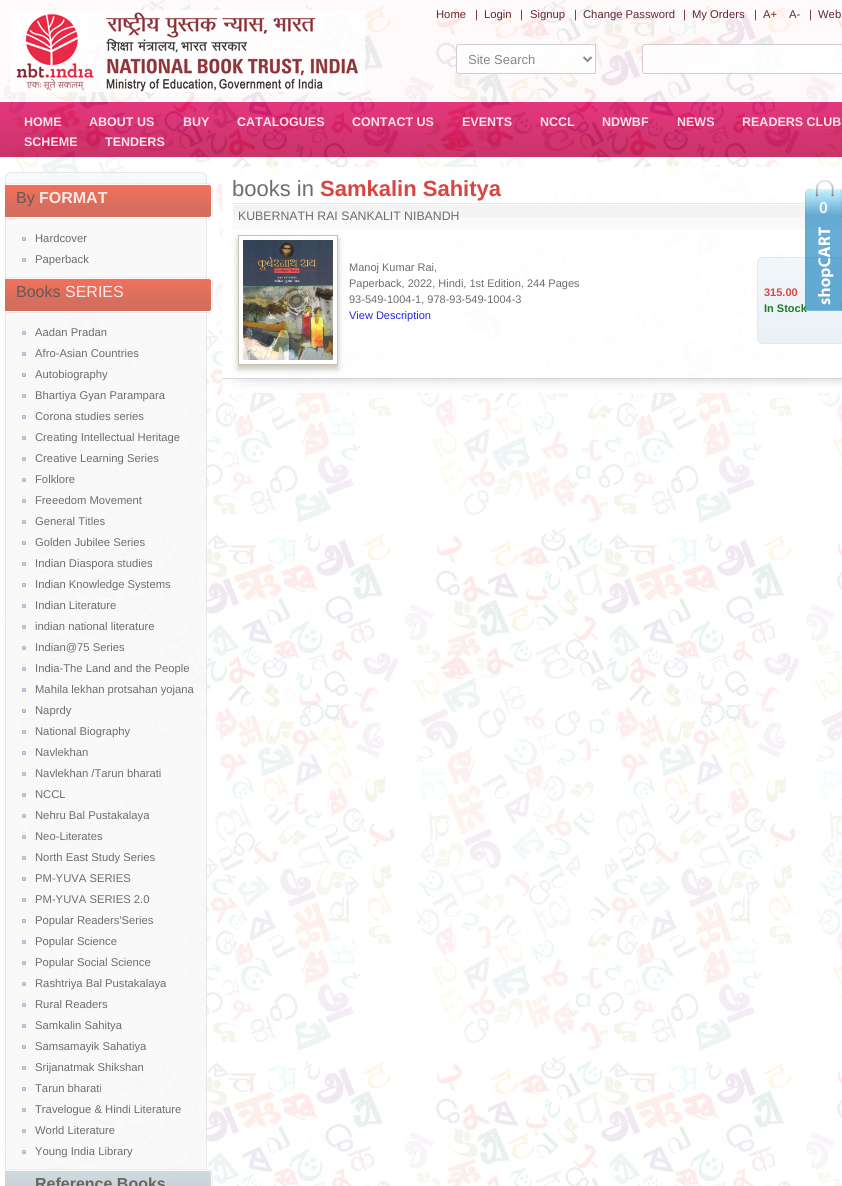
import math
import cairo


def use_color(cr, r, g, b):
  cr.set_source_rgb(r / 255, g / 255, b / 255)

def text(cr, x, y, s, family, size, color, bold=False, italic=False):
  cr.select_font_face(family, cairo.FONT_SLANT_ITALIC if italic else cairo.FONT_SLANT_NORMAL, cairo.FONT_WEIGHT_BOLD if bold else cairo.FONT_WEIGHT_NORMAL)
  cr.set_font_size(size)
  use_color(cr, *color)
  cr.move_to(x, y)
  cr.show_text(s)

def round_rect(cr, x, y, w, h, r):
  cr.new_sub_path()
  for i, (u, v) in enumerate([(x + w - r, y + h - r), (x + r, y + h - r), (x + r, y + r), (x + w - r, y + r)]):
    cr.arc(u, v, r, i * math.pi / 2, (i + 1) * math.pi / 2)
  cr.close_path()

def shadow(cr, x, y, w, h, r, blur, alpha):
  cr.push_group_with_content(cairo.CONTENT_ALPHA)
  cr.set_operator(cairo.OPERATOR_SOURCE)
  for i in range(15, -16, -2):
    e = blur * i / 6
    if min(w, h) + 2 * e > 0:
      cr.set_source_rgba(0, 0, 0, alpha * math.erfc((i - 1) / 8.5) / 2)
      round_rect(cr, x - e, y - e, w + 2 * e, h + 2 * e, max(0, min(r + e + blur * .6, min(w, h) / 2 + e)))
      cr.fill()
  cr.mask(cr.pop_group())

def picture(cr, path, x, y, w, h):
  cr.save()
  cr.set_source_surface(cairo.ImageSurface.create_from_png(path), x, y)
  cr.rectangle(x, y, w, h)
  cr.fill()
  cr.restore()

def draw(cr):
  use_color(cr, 255, 255, 255)
  cr.paint()
  picture(cr, "img_01.png", 0, 0, 842, 1186)
  cr.set_source_rgba(1, 0.98, 0.984, 0.86)
  cr.rectangle(0, 0, 842, 102)
  cr.fill()
  picture(cr, "img_02.png", 10, 10, 355, 82)
  cr.set_source_rgba(1, 1, 1, 0.86)
  cr.new_path()
  cr.move_to(459, 44)
  cr.line_to(596, 44)
  cr.line_to(596, 74)
  cr.line_to(459, 74)
  cr.curve_to(457.5, 74, 456, 72.5, 456, 71)
  cr.line_to(456, 47)
  cr.curve_to(456, 45.5, 457.5, 44, 459, 44)
  cr.close_path()
  cr.fill()
  cr.new_path()
  cr.move_to(459, 44.5)
  cr.line_to(595.5, 44.5)
  cr.line_to(595.5, 73.5)
  cr.line_to(459, 73.5)
  cr.curve_to(457.5, 73.5, 456.5, 72.5, 456.5, 71)
  cr.line_to(456.5, 47)
  cr.curve_to(456.5, 45.5, 457.5, 44.5, 459, 44.5)
  cr.close_path()
  cr.set_source_rgba(0.78, 0.78, 0.78, 0.86)
  cr.set_line_width(1)
  cr.stroke()
  cr.new_path()
  cr.move_to(583.5, 57)
  cr.line_to(587.5, 61)
  cr.line_to(591.5, 57)
  use_color(cr, 136, 136, 134)
  cr.set_line_width(2)
  cr.stroke()
  cr.set_source_rgba(1, 1, 1, 0.86)
  cr.new_path()
  cr.move_to(645, 44)
  cr.line_to(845, 44)
  cr.line_to(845, 74)
  cr.line_to(645, 74)
  cr.curve_to(643.5, 74, 642, 72.5, 642, 71)
  cr.line_to(642, 47)
  cr.curve_to(642, 45.5, 643.5, 44, 645, 44)
  cr.close_path()
  cr.fill()
  cr.new_path()
  cr.move_to(645, 44.5)
  cr.line_to(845.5, 44.5)
  cr.line_to(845.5, 73.5)
  cr.line_to(645, 73.5)
  cr.curve_to(643.5, 73.5, 642.5, 72.5, 642.5, 71)
  cr.line_to(642.5, 47)
  cr.curve_to(642.5, 45.5, 643.5, 44.5, 645, 44.5)
  cr.close_path()
  cr.set_source_rgba(0.78, 0.78, 0.78, 0.86)
  cr.set_line_width(1)
  cr.stroke()
  cr.set_source_rgba(1, 1, 1, 0.86)
  cr.rectangle(0, 157, 842, 1029)
  cr.fill()
  cr.set_source_rgba(0.976, 0.976, 0.976, 0.86)
  round_rect(cr, 5, 172, 202, 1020, 6)
  cr.fill()
  round_rect(cr, 5.5, 172.5, 201, 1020, 5.5)
  cr.set_source_rgba(0.898, 0.898, 0.898, 0.86)
  cr.stroke()
  picture(cr, "img_03.png", 5, 183, 208, 36)
  picture(cr, "img_04.png", 22, 237, 4, 4)
  picture(cr, "img_05.png", 22, 258, 4, 4)
  picture(cr, "img_06.png", 5, 277, 208, 36)
  picture(cr, "img_07.png", 22, 331, 4, 4)
  picture(cr, "img_05.png", 22, 352, 4, 4)
  picture(cr, "img_05.png", 22, 373, 4, 4)
  picture(cr, "img_07.png", 22, 394, 4, 4)
  picture(cr, "img_05.png", 22, 415, 4, 4)
  picture(cr, "img_05.png", 22, 436, 4, 4)
  picture(cr, "img_05.png", 22, 457, 4, 4)
  picture(cr, "img_05.png", 22, 478, 4, 4)
  picture(cr, "img_05.png", 22, 499, 4, 4)
  picture(cr, "img_05.png", 22, 520, 4, 4)
  picture(cr, "img_05.png", 22, 541, 4, 4)
  picture(cr, "img_05.png", 22, 562, 4, 4)
  picture(cr, "img_05.png", 22, 583, 4, 4)
  picture(cr, "img_05.png", 22, 604, 4, 4)
  picture(cr, "img_08.png", 22, 625, 4, 4)
  picture(cr, "img_09.png", 22, 646, 4, 4)
  picture(cr, "img_05.png", 22, 667, 4, 4)
  picture(cr, "img_10.png", 22, 688, 4, 4)
  picture(cr, "img_05.png", 22, 709, 4, 4)
  picture(cr, "img_11.png", 22, 730, 4, 4)
  picture(cr, "img_04.png", 22, 751, 4, 4)
  picture(cr, "img_12.png", 22, 772, 4, 4)
  picture(cr, "img_13.png", 22, 793, 4, 4)
  picture(cr, "img_05.png", 22, 814, 4, 4)
  picture(cr, "img_05.png", 22, 835, 4, 4)
  picture(cr, "img_14.png", 22, 856, 4, 4)
  picture(cr, "img_07.png", 22, 877, 4, 4)
  picture(cr, "img_05.png", 22, 898, 4, 4)
  picture(cr, "img_15.png", 22, 919, 4, 4)
  picture(cr, "img_05.png", 22, 940, 4, 4)
  picture(cr, "img_05.png", 22, 961, 4, 4)
  picture(cr, "img_05.png", 22, 982, 4, 4)
  picture(cr, "img_05.png", 22, 1003, 4, 4)
  picture(cr, "img_05.png", 22, 1024, 4, 4)
  picture(cr, "img_05.png", 22, 1045, 4, 4)
  picture(cr, "img_05.png", 22, 1066, 4, 4)
  picture(cr, "img_05.png", 22, 1087, 4, 4)
  picture(cr, "img_05.png", 22, 1108, 4, 4)
  picture(cr, "img_05.png", 22, 1129, 4, 4)
  picture(cr, "img_16.png", 22, 1150, 4, 4)
  picture(cr, "img_17.png", 5, 1169, 208, 17)
  cr.set_source_rgba(1, 1, 1, 0.86)
  round_rect(cr, 222, 167, 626, 226, 6)
  cr.fill()
  picture(cr, "img_18.png", 222, 378, 620, 11)
  cr.set_source_rgba(0.973, 0.973, 0.973, 0.86)
  cr.rectangle(233, 203, 609, 26)
  cr.fill()
  picture(cr, "img_19.png", 233, 203, 609, 14)
  cr.save()
  cr.set_fill_rule(cairo.FILL_RULE_EVEN_ODD)
  cr.new_path()
  cr.move_to(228, 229)
  cr.line_to(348, 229)
  cr.line_to(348, 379)
  cr.line_to(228, 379)
  cr.close_path()
  cr.move_to(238, 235)
  cr.line_to(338, 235)
  cr.line_to(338, 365)
  cr.line_to(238, 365)
  cr.close_path()
  cr.clip()
  use_color(cr, 189, 186, 175)
  shadow(cr, 238, 239, 100, 130, 0, 3, 0.86)
  cr.restore()
  cr.set_source_rgba(1, 1, 1, 0.86)
  cr.rectangle(239, 241, 98, 123)
  cr.fill()
  cr.rectangle(238.5, 235.5, 99, 129)
  use_color(cr, 198, 196, 186)
  cr.stroke()
  picture(cr, "img_20.png", 243, 240, 90, 120)
  cr.set_source_rgba(0.867, 0.914, 0.953, 0.86)
  round_rect(cr, 757, 257, 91, 87, 6)
  cr.fill()
  picture(cr, "img_21.png", 757, 258, 85, 86)
  round_rect(cr, 757.5, 257.5, 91, 86, 5.5)
  cr.stroke()
  text(cr, 436, 18, "Home", "Liberation Sans", 11.25, (100, 38, 48))
  text(cr, 475, 18, "|", "Liberation Sans", 11.25, (126, 43, 64))
  text(cr, 484, 18, "Login", "Liberation Sans", 11.25, (100, 38, 48))
  text(cr, 520, 18, "|", "Liberation Sans", 11.25, (126, 43, 64))
  text(cr, 530, 18, "Signup", "Liberation Sans", 11.25, (100, 38, 48))
  text(cr, 574, 18, "|", "Liberation Sans", 11.25, (126, 43, 64))
  text(cr, 583, 18, "Change Password", "Liberation Sans", 11.25, (100, 38, 48))
  text(cr, 683, 18, "|", "Liberation Sans", 11.25, (126, 43, 64))
  text(cr, 692, 18, "My Orders", "Liberation Sans", 11.25, (100, 38, 48))
  text(cr, 754, 18, "|", "Liberation Sans", 11.25, (126, 43, 64))
  text(cr, 763, 18, "A+", "Liberation Sans", 11.25, (100, 38, 48))
  text(cr, 789, 18, "A-", "Liberation Sans", 11.25, (100, 38, 48))
  text(cr, 809, 18, "|", "Liberation Sans", 11.25, (126, 43, 64))
  text(cr, 818, 18, "Web", "Liberation Sans", 11.25, (100, 38, 48))
  text(cr, 468, 64, "Site Search", "Liberation Sans", 13, (136, 135, 134))
  text(cr, 24, 126, "HOME", "Liberation Sans", 12.5, (250, 225, 234), bold=True)
  text(cr, 89, 126, "ABOUT US", "Liberation Sans", 12.5, (250, 225, 234), bold=True)
  text(cr, 183, 126, "BUY", "Liberation Sans", 12.5, (250, 225, 234), bold=True)
  text(cr, 237, 126, "CATALOGUES", "Liberation Sans", 12.5, (250, 225, 234), bold=True)
  text(cr, 352, 126, "CONTACT US", "Liberation Sans", 12.5, (250, 225, 234), bold=True)
  text(cr, 462, 126, "EVENTS", "Liberation Sans", 12.5, (250, 225, 234), bold=True)
  text(cr, 540, 126, "NCCL", "Liberation Sans", 12.5, (250, 225, 234), bold=True)
  text(cr, 602, 126, "NDWBF", "Liberation Sans", 12.5, (250, 225, 234), bold=True)
  text(cr, 677, 126, "NEWS", "Liberation Sans", 12.5, (250, 225, 234), bold=True)
  text(cr, 742, 126, "READERS CLUB", "Liberation Sans", 12.5, (250, 225, 234), bold=True)
  text(cr, 24, 146, "SCHEME", "Liberation Sans", 12.5, (250, 225, 234), bold=True)
  text(cr, 105, 146, "TENDERS", "Liberation Sans", 12.5, (250, 225, 234), bold=True)
  text(cr, 16, 203, "By", "Liberation Sans", 16, (101, 88, 87))
  text(cr, 39, 203, "FORMAT", "Liberation Sans", 16, (247, 233, 232), bold=True)
  text(cr, 35, 242, "Hardcover", "Liberation Sans", 11.25, (109, 109, 109))
  text(cr, 35, 263, "Paperback", "Liberation Sans", 11.25, (109, 109, 109))
  text(cr, 16, 297, "Books", "Liberation Sans", 16, (101, 88, 87))
  text(cr, 65, 297, "SERIES", "Liberation Sans", 16, (247, 233, 232))
  text(cr, 35, 336, "Aadan Pradan", "Liberation Sans", 11.25, (109, 109, 109))
  text(cr, 35, 357, "Afro-Asian Countries", "Liberation Sans", 11.25, (109, 109, 109))
  text(cr, 35, 378, "Autobiography", "Liberation Sans", 11.25, (109, 109, 109))
  text(cr, 35, 399, "Bhartiya Gyan Parampara", "Liberation Sans", 11.25, (109, 109, 109))
  text(cr, 35, 420, "Corona studies series", "Liberation Sans", 11.25, (109, 109, 109))
  text(cr, 35, 441, "Creating Intellectual Heritage", "Liberation Sans", 11.25, (109, 109, 109))
  text(cr, 35, 462, "Creative Learning Series", "Liberation Sans", 11.25, (109, 109, 109))
  text(cr, 35, 483, "Folklore", "Liberation Sans", 11.25, (109, 109, 109))
  text(cr, 35, 504, "Freeedom Movement", "Liberation Sans", 11.25, (109, 109, 109))
  text(cr, 35, 525, "General Titles", "Liberation Sans", 11.25, (109, 109, 109))
  text(cr, 35, 546, "Golden Jubilee Series", "Liberation Sans", 11.25, (109, 109, 109))
  text(cr, 35, 567, "Indian Diaspora studies", "Liberation Sans", 11.25, (109, 109, 109))
  text(cr, 35, 588, "Indian Knowledge Systems", "Liberation Sans", 11.25, (109, 109, 109))
  text(cr, 35, 609, "Indian Literature", "Liberation Sans", 11.25, (109, 109, 109))
  text(cr, 35, 630, "indian national literature", "Liberation Sans", 11.25, (109, 109, 109))
  text(cr, 35, 651, "Indian@75 Series", "Liberation Sans", 11.25, (109, 109, 109))
  text(cr, 35, 672, "India-The Land and the People", "Liberation Sans", 11.25, (109, 109, 109))
  text(cr, 35, 693, "Mahila lekhan protsahan yojana", "Liberation Sans", 11.25, (109, 109, 109))
  text(cr, 35, 714, "Naprdy", "Liberation Sans", 11.25, (109, 109, 109))
  text(cr, 35, 735, "National Biography", "Liberation Sans", 11.25, (109, 109, 109))
  text(cr, 35, 756, "Navlekhan", "Liberation Sans", 11.25, (109, 109, 109))
  text(cr, 35, 777, "Navlekhan /Tarun bharati", "Liberation Sans", 11.25, (109, 109, 109))
  text(cr, 35, 798, "NCCL", "Liberation Sans", 11.25, (109, 109, 109))
  text(cr, 35, 819, "Nehru Bal Pustakalaya", "Liberation Sans", 11.25, (109, 109, 109))
  text(cr, 35, 840, "Neo-Literates", "Liberation Sans", 11.25, (109, 109, 109))
  text(cr, 35, 861, "North East Study Series", "Liberation Sans", 11.25, (109, 109, 109))
  text(cr, 35, 882, "PM-YUVA SERIES", "Liberation Sans", 11.25, (109, 109, 109))
  text(cr, 35, 903, "PM-YUVA SERIES 2.0", "Liberation Sans", 11.25, (109, 109, 109))
  text(cr, 35, 924, "Popular Readers'Series", "Liberation Sans", 11.25, (109, 109, 109))
  text(cr, 35, 945, "Popular Science", "Liberation Sans", 11.25, (109, 109, 109))
  text(cr, 35, 966, "Popular Social Science", "Liberation Sans", 11.25, (109, 109, 109))
  text(cr, 35, 987, "Rashtriya Bal Pustakalaya", "Liberation Sans", 11.25, (109, 109, 109))
  text(cr, 35, 1008, "Rural Readers", "Liberation Sans", 11.25, (109, 109, 109))
  text(cr, 35, 1029, "Samkalin Sahitya", "Liberation Sans", 11.25, (109, 109, 109))
  text(cr, 35, 1050, "Samsamayik Sahatiya", "Liberation Sans", 11.25, (109, 109, 109))
  text(cr, 35, 1071, "Srijanatmak Shikshan", "Liberation Sans", 11.25, (109, 109, 109))
  text(cr, 35, 1092, "Tarun bharati", "Liberation Sans", 11.25, (109, 109, 109))
  text(cr, 35, 1113, "Travelogue & Hindi Literature", "Liberation Sans", 11.25, (109, 109, 109))
  text(cr, 35, 1134, "World Literature", "Liberation Sans", 11.25, (109, 109, 109))
  text(cr, 35, 1155, "Young India Library", "Liberation Sans", 11.25, (109, 109, 109))
  text(cr, 35, 1189, "Reference Books", "Liberation Sans", 16, (102, 101, 101), bold=True)
  text(cr, 232, 196, "books in", "Liberation Sans", 22, (109, 109, 109))
  text(cr, 320, 196, "Samkalin Sahitya", "Liberation Sans", 22, (217, 69, 65), bold=True)
  text(cr, 238, 220, "KUBERNATH RAI SANKALIT NIBANDH", "Liberation Sans", 12.3, (109, 109, 109))
  text(cr, 349, 271, "Manoj Kumar Rai,", "Liberation Sans", 11, (109, 109, 109))
  text(cr, 349, 287, "Paperback, 2022, Hindi, 1st Edition, 244 Pages", "Liberation Sans", 11, (109, 109, 109))
  text(cr, 349, 303, "93-549-1004-1, 978-93-549-1004-3", "Liberation Sans", 11, (109, 109, 109))
  text(cr, 349, 319, "View Description", "Liberation Sans", 11, (36, 36, 240))
  text(cr, 764, 296, "315.00", "Liberation Sans", 11, (217, 69, 65), bold=True)
  text(cr, 764, 312, "In Stock", "Liberation Sans", 11, (34, 122, 35), bold=True)
  picture(cr, "img_22.png", 805, 180, 37, 131)
  text(cr, 819, 213, "0", "Liberation Sans", 16, (237, 246, 250), bold=True)


surface = cairo.ImageSurface(cairo.FORMAT_RGB24, 842, 1186)
cr = cairo.Context(surface)
options = cairo.FontOptions()
options.set_hint_metrics(cairo.HINT_METRICS_OFF)
options.set_hint_style(cairo.HINT_STYLE_NONE)
cr.set_font_options(options)
cr.set_miter_limit(4)
draw(cr)
surface.write_to_png("out.png")
